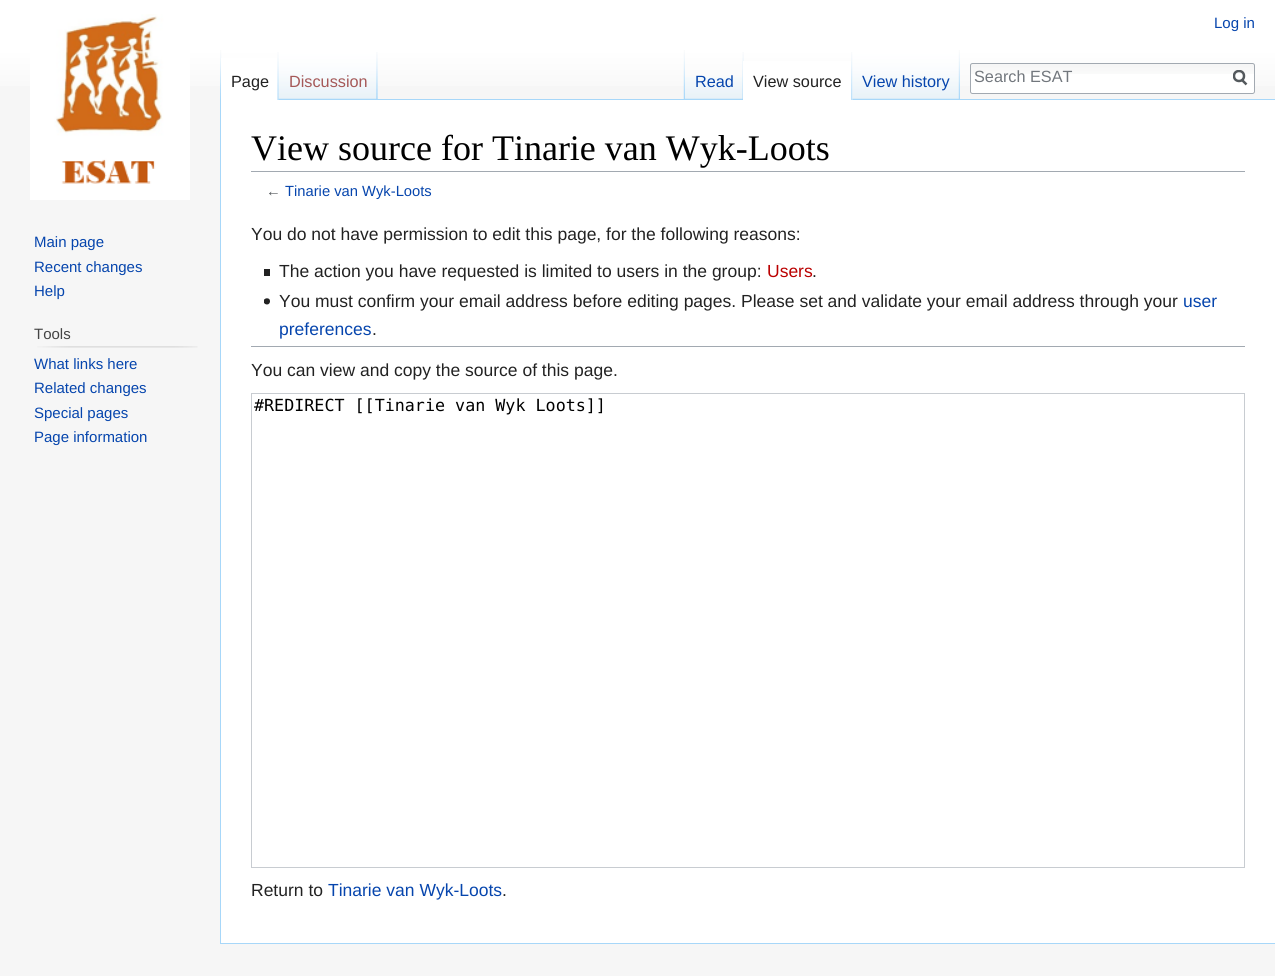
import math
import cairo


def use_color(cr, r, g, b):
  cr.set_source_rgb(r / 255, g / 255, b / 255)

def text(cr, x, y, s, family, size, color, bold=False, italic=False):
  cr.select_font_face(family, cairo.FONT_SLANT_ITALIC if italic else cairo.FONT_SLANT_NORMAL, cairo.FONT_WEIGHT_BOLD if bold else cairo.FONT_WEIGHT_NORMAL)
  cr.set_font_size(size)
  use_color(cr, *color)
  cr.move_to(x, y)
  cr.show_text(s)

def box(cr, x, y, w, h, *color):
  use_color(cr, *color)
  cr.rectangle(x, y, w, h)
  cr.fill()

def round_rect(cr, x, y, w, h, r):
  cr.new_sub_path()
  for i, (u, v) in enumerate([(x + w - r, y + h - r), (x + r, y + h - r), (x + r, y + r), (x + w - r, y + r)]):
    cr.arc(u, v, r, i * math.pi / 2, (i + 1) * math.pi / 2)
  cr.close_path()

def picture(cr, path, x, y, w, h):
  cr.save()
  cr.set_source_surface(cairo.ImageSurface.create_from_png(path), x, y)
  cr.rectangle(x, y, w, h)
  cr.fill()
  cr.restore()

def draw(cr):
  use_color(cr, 246, 246, 246)
  cr.paint()
  gradient = cairo.LinearGradient(638, 0, 638, 100)
  gradient.add_color_stop_rgba(0.5, 1, 1, 1, 1)
  gradient.add_color_stop_rgba(1, 0.965, 0.965, 0.965, 1)
  cr.set_source(gradient)
  cr.rectangle(0, 0, 1275, 86)
  cr.fill()
  picture(cr, "img_01.png", 220, 50, 2, 49)
  picture(cr, "img_02.png", 377, 52, 1, 47)
  box(cr, 221, 58, 58, 42, 255, 255, 255)
  picture(cr, "img_03.png", 277, 52, 2, 48)
  box(cr, 377, 99, 898, 1, 167, 215, 249)
  picture(cr, "img_04.png", 278, 52, 100, 48)
  picture(cr, "img_05.png", 376, 52, 2, 47)
  picture(cr, "img_06.png", 683, 50, 2, 49)
  picture(cr, "img_07.png", 685, 77, 58, 22)
  picture(cr, "img_08.png", 742, 52, 2, 47)
  box(cr, 743, 61, 110, 39, 255, 255, 255)
  picture(cr, "img_09.png", 851, 52, 2, 48)
  picture(cr, "img_10.png", 852, 50, 108, 50)
  picture(cr, "img_11.png", 958, 50, 2, 49)
  round_rect(cr, 970, 63, 285, 31, 2.5)
  cr.fill()
  picture(cr, "img_12.png", 970, 64, 285, 10)
  round_rect(cr, 970.5, 63.5, 284, 30, 2)
  use_color(cr, 162, 169, 177)
  cr.set_line_width(1)
  cr.stroke()
  cr.new_path()
  cr.move_to(1246.5, 84.5)
  cr.line_to(1241.5, 79.5)
  use_color(cr, 84, 89, 93)
  cr.set_line_width(2.5)
  cr.stroke()
  cr.save()
  cr.rectangle(1233, 70, 15, 16)
  cr.clip()
  cr.arc(1239, 76, 5, 0, 2 * math.pi)
  cr.stroke()
  cr.restore()
  picture(cr, "img_13.png", 30, 14, 160, 186)
  picture(cr, "img_14.png", 37, 346, 161, 2)
  box(cr, 221, 100, 1054, 843, 255, 255, 255)
  box(cr, 220, 943, 1055, 1, 167, 215, 249)
  box(cr, 220, 99, 1, 845, 167, 215, 249)
  box(cr, 251, 171, 994, 1, 162, 169, 177)
  box(cr, 264, 269, 6, 7, 34, 34, 34)
  picture(cr, "img_15.png", 264, 298, 6, 7)
  box(cr, 251, 346, 994, 1, 162, 169, 177)
  cr.rectangle(251.5, 393.5, 993, 474)
  use_color(cr, 200, 204, 209)
  cr.set_line_width(1)
  cr.stroke()
  text(cr, 1214, 28, "Log in", "Liberation Sans", 15, (6, 69, 173))
  text(cr, 231, 87, "Page", "Liberation Sans", 16.25, (34, 34, 34))
  text(cr, 289, 87, "Discussion", "Liberation Sans", 16.25, (165, 88, 88))
  text(cr, 695, 87, "Read", "Liberation Sans", 16.25, (6, 69, 173))
  text(cr, 753, 87, "View source", "Liberation Sans", 16.25, (34, 34, 34))
  text(cr, 862, 87, "View history", "Liberation Sans", 16.25, (6, 69, 173))
  text(cr, 974, 82, "Search ESAT", "Liberation Sans", 16.25, (114, 119, 125))
  text(cr, 34, 247, "Main page", "Liberation Sans", 15, (6, 69, 173))
  text(cr, 34, 272, "Recent changes", "Liberation Sans", 15, (6, 69, 173))
  text(cr, 34, 296, "Help", "Liberation Sans", 15, (6, 69, 173))
  text(cr, 34, 339, "Tools", "Liberation Sans", 15, (68, 68, 68))
  text(cr, 34, 369, "What links here", "Liberation Sans", 15, (6, 69, 173))
  text(cr, 34, 393, "Related changes", "Liberation Sans", 15, (6, 69, 173))
  text(cr, 34, 418, "Special pages", "Liberation Sans", 15, (6, 69, 173))
  text(cr, 34, 442, "Page information", "Liberation Sans", 15, (6, 69, 173))
  text(cr, 251, 160, "View source for Tinarie van Wyk-Loots", "Liberation Serif", 36, (0, 0, 0))
  text(cr, 266, 196, "←", "Liberation Sans", 14.75, (84, 89, 93))
  text(cr, 285, 196, "Tinarie van Wyk-Loots", "Liberation Sans", 14.75, (6, 69, 173))
  text(cr, 251, 240, "You do not have permission to edit this page, for the following reasons:", "Liberation Sans", 17.5, (34, 34, 34))
  text(cr, 279, 277, "The action you have requested is limited to users in the group:", "Liberation Sans", 17.5, (34, 34, 34))
  text(cr, 767, 277, "Users", "Liberation Sans", 17.5, (186, 0, 0))
  text(cr, 812, 277, ".", "Liberation Sans", 17.5, (34, 34, 34))
  text(cr, 279, 307, "You must confirm your email address before editing pages. Please set and validate your email address through your", "Liberation Sans", 17.5, (34, 34, 34))
  text(cr, 1183, 307, "user", "Liberation Sans", 17.5, (6, 69, 173))
  text(cr, 279, 335, "preferences", "Liberation Sans", 17.5, (6, 69, 173))
  text(cr, 372, 335, ".", "Liberation Sans", 17.5, (34, 34, 34))
  text(cr, 251, 376, "You can view and copy the source of this page.", "Liberation Sans", 17.5, (34, 34, 34))
  text(cr, 254, 411, "#REDIRECT [[Tinarie van Wyk Loots]]", "DejaVu Sans Mono", 16.7, (0, 0, 0))
  text(cr, 251, 896, "Return to", "Liberation Sans", 17.5, (34, 34, 34))
  text(cr, 328, 896, "Tinarie van Wyk-Loots", "Liberation Sans", 17.5, (6, 69, 173))
  text(cr, 502, 896, ".", "Liberation Sans", 17.5, (34, 34, 34))


surface = cairo.ImageSurface(cairo.FORMAT_RGB24, 1275, 976)
cr = cairo.Context(surface)
options = cairo.FontOptions()
options.set_hint_metrics(cairo.HINT_METRICS_OFF)
options.set_hint_style(cairo.HINT_STYLE_NONE)
cr.set_font_options(options)
cr.set_miter_limit(4)
draw(cr)
surface.write_to_png("out.png")
